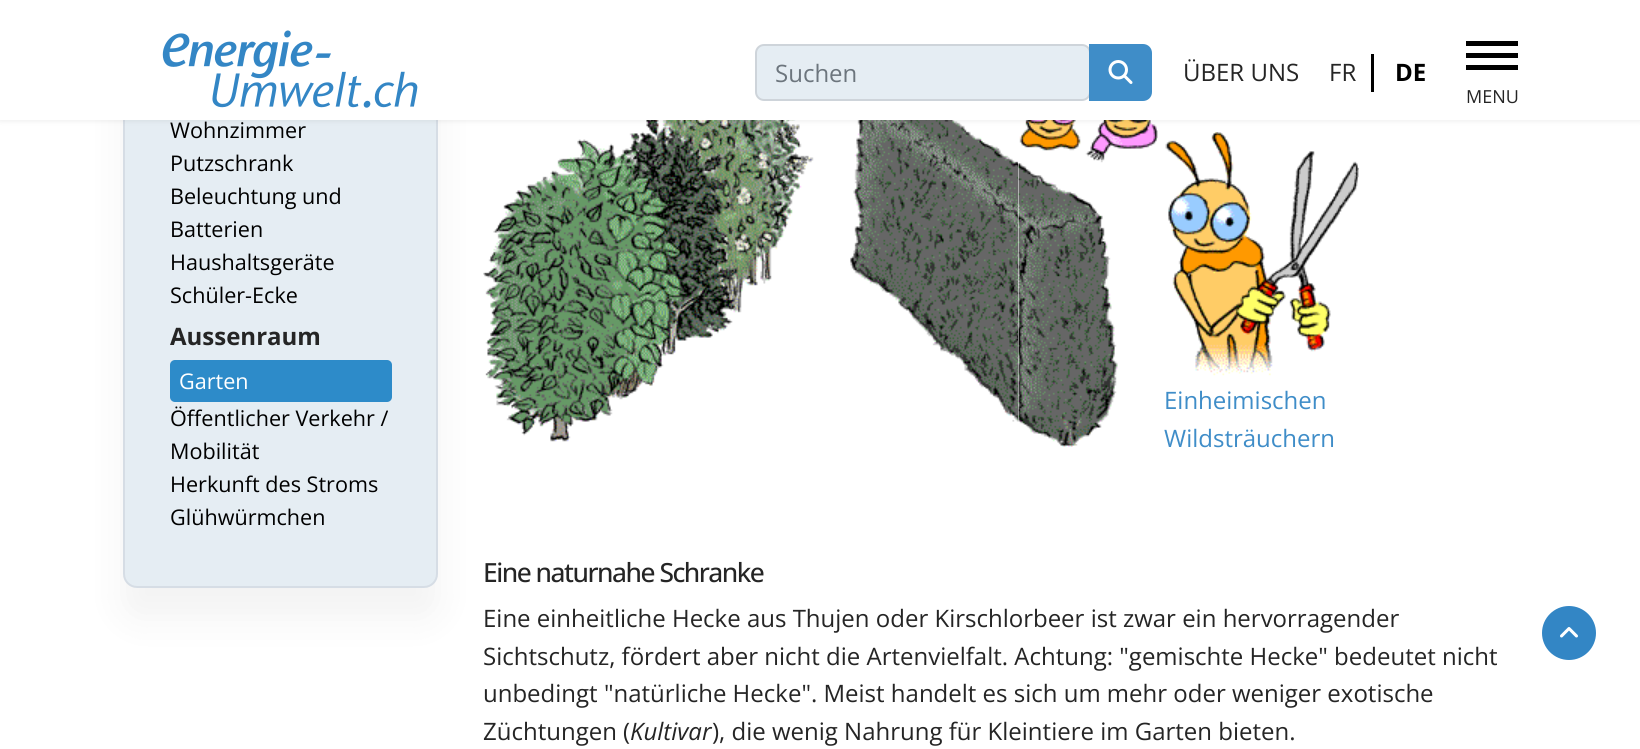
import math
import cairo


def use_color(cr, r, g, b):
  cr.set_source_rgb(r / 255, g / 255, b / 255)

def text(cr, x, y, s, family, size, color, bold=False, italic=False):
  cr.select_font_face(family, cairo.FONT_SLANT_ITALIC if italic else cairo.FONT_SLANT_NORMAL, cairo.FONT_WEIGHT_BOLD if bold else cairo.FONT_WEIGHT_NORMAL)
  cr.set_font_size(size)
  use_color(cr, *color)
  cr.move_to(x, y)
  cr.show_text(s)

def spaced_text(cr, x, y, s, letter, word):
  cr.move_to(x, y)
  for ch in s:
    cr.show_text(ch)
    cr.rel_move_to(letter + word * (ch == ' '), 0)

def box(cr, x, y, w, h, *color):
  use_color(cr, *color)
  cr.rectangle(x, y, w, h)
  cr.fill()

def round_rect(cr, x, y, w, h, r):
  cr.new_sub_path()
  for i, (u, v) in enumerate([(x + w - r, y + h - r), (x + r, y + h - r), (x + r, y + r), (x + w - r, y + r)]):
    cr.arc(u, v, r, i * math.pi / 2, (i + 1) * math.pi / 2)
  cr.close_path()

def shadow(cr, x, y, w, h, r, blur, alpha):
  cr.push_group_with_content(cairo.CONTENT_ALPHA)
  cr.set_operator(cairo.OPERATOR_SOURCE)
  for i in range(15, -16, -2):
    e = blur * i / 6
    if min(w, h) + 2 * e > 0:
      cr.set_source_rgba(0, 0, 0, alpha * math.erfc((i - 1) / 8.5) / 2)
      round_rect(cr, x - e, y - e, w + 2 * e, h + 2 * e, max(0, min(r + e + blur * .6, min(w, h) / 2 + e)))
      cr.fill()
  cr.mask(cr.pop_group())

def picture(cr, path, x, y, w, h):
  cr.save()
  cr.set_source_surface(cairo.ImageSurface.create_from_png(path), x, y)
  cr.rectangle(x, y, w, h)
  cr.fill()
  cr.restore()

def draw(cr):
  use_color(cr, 255, 255, 255)
  cr.paint()
  use_color(cr, 0, 0, 0)
  shadow(cr, 123, -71, 315, 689, 14, 19, 0.05)
  use_color(cr, 229, 237, 243)
  round_rect(cr, 123, -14, 315, 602, 14)
  cr.fill()
  round_rect(cr, 124, -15, 313, 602, 13)
  cr.set_source_rgba(0.004, 0.02, 0.157, 0.07)
  cr.stroke()
  picture(cr, "img_03.png", 483, 120, 331, 322)
  picture(cr, "img_04.png", 850, 120, 168, 302)
  picture(cr, "img_05.png", 1019, 120, 139, 41)
  use_color(cr, 0, 0, 0)
  shadow(cr, 0, 0, 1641, 120, 0, 3, 0.1)
  box(cr, 0, 0, 1640, 120, 255, 255, 255)
  picture(cr, "img_01.png", 162, 30, 256, 78)
  use_color(cr, 229, 237, 243)
  round_rect(cr, 756, 45, 334, 55, 8)
  cr.fill_preserve()
  use_color(cr, 206, 212, 218)
  cr.stroke()
  use_color(cr, 63, 141, 200)
  cr.new_path()
  cr.move_to(1090, 45)
  cr.line_to(1143, 45)
  cr.curve_to(1147.5, 45, 1151, 48.5, 1151, 53)
  cr.line_to(1151, 92)
  cr.curve_to(1151, 96.5, 1147.5, 100, 1143, 100)
  cr.line_to(1090, 100)
  cr.close_path()
  cr.fill_preserve()
  cr.stroke()
  picture(cr, "img_02.png", 1108, 60, 25, 24)
  box(cr, 1371, 54, 3, 38, 0, 0, 0)
  box(cr, 1466, 41, 52, 5, 0, 0, 0)
  box(cr, 1466, 53, 52, 5, 0, 0, 0)
  box(cr, 1466, 65, 52, 5, 0, 0, 0)
  use_color(cr, 45, 139, 201)
  round_rect(cr, 170, 360, 222, 42, 5)
  cr.fill()
  picture(cr, "img_06.png", 1018, 160, 100, 287)
  picture(cr, "img_07.png", 1165, 132, 194, 244)
  use_color(cr, 51, 134, 197)
  cr.arc(1569, 633, 27, 0, 2 * math.pi)
  cr.fill()
  picture(cr, "img_08.png", 1560, 627, 18, 11)
  text(cr, 775, 82, "Suchen", "Open Sans", 24, (108, 117, 125))
  text(cr, 1183, 81, "ÜBER UNS", "Open Sans", 24, (37, 37, 37))
  text(cr, 1329, 81, "FR", "Open Sans", 24, (37, 37, 37))
  text(cr, 1395, 81, "DE", "Open Sans", 24, (0, 0, 0), bold=True)
  text(cr, 1466, 103, "MENU", "Open Sans", 18, (37, 37, 37))
  text(cr, 170, 138, "Wohnzimmer", "Open Sans", 21.6, (0, 0, 0))
  text(cr, 170, 171, "Putzschrank", "Open Sans", 21.6, (0, 0, 0))
  text(cr, 170, 204, "Beleuchtung und", "Open Sans", 21.6, (0, 0, 0))
  text(cr, 170, 237, "Batterien", "Open Sans", 21.6, (0, 0, 0))
  text(cr, 170, 270, "Haushaltsgeräte", "Open Sans", 21.6, (0, 0, 0))
  text(cr, 170, 303, "Schüler-Ecke", "Open Sans", 21.6, (0, 0, 0))
  text(cr, 170, 345, "Aussenraum", "Open Sans", 24, (37, 37, 37), bold=True)
  text(cr, 179, 389, "Garten", "Open Sans", 21.6, (255, 255, 255))
  text(cr, 170, 426, "Öffentlicher Verkehr /", "Open Sans", 21.6, (0, 0, 0))
  text(cr, 170, 459, "Mobilität", "Open Sans", 21.6, (0, 0, 0))
  text(cr, 170, 492, "Herkunft des Stroms", "Open Sans", 21.6, (0, 0, 0))
  text(cr, 170, 525, "Glühwürmchen", "Open Sans", 21.6, (0, 0, 0))
  text(cr, 1164, 409, "Einheimischen", "Open Sans", 24, (63, 141, 200))
  text(cr, 1164, 447, "Wildsträuchern", "Open Sans", 24, (63, 141, 200))
  cr.select_font_face("Open Sans Medium")
  cr.set_font_size(26.4)
  use_color(cr, 37, 37, 37)
  spaced_text(cr, 483, 582, "Eine naturnahe Schranke", -1.5, 0)
  text(cr, 483, 627, "Eine einheitliche Hecke aus Thujen oder Kirschlorbeer ist zwar ein hervorragender", "Open Sans", 24, (37, 37, 37))
  text(cr, 483, 665, "Sichtschutz, fördert aber nicht die Artenvielfalt. Achtung: \"gemischte Hecke\" bedeutet nicht", "Open Sans", 24, (37, 37, 37))
  text(cr, 483, 702, "unbedingt \"natürliche Hecke\". Meist handelt es sich um mehr oder weniger exotische", "Open Sans", 24, (37, 37, 37))
  text(cr, 483, 740, "Züchtungen (", "Open Sans", 24, (37, 37, 37))
  text(cr, 630, 740, "Kultivar", "Open Sans", 24, (37, 37, 37), italic=True)
  text(cr, 712, 740, "), die wenig Nahrung für Kleintiere im Garten bieten.", "Open Sans", 24, (37, 37, 37))


surface = cairo.ImageSurface(cairo.FORMAT_RGB24, 1640, 749)
cr = cairo.Context(surface)
options = cairo.FontOptions()
options.set_hint_metrics(cairo.HINT_METRICS_OFF)
options.set_hint_style(cairo.HINT_STYLE_NONE)
cr.set_font_options(options)
cr.set_miter_limit(4)
draw(cr)
surface.write_to_png("out.png")
